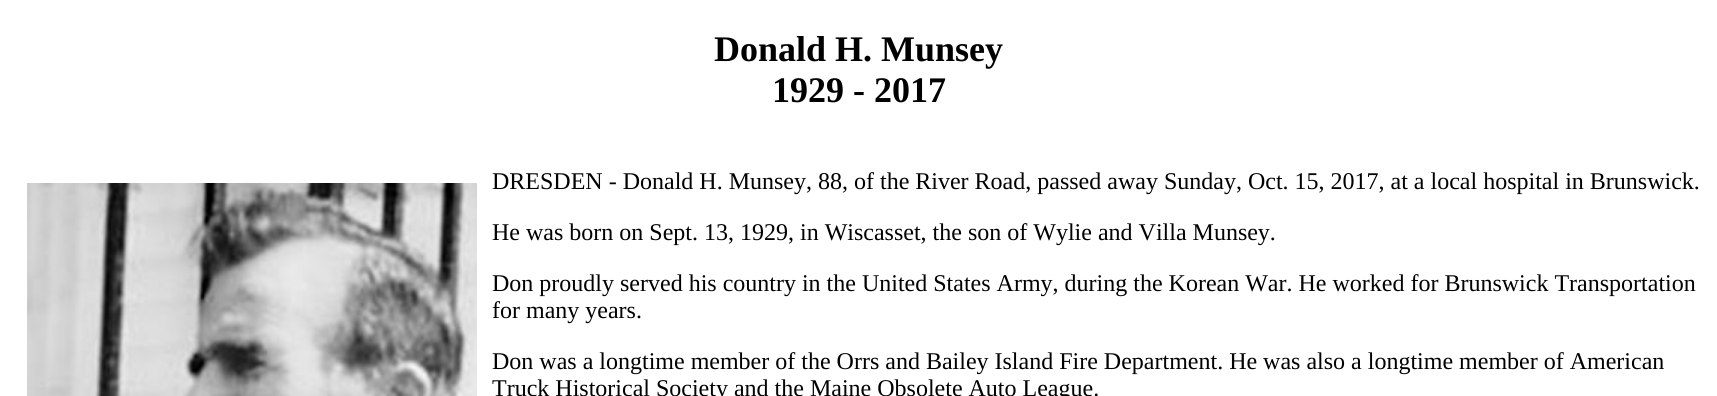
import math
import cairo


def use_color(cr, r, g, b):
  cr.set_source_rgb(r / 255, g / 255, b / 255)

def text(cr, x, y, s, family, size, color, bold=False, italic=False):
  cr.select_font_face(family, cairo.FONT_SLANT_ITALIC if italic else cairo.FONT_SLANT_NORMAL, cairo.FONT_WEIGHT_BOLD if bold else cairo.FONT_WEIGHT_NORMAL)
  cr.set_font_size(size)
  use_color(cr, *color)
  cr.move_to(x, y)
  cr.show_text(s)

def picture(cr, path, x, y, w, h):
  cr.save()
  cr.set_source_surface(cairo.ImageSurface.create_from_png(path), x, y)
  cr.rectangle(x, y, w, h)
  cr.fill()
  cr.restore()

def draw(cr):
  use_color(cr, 255, 255, 255)
  cr.paint()
  picture(cr, "img_01.png", 27, 183, 450, 213)
  text(cr, 714, 61, "Donald H. Munsey", "Liberation Serif", 36, (0, 0, 0), bold=True)
  text(cr, 772, 102, "1929 - 2017", "Liberation Serif", 36, (0, 0, 0), bold=True)
  text(cr, 492, 189, "DRESDEN - Donald H. Munsey, 88, of the River Road, passed away Sunday, Oct. 15, 2017, at a local hospital in Brunswick.", "Liberation Serif", 24, (0, 0, 0))
  text(cr, 492, 240, "He was born on Sept. 13, 1929, in Wiscasset, the son of Wylie and Villa Munsey.", "Liberation Serif", 24, (0, 0, 0))
  text(cr, 492, 291, "Don proudly served his country in the United States Army, during the Korean War. He worked for Brunswick Transportation", "Liberation Serif", 24, (0, 0, 0))
  text(cr, 492, 318, "for many years.", "Liberation Serif", 24, (0, 0, 0))
  text(cr, 492, 369, "Don was a longtime member of the Orrs and Bailey Island Fire Department. He was also a longtime member of American", "Liberation Serif", 24, (0, 0, 0))
  text(cr, 492, 396, "Truck Historical Society and the Maine Obsolete Auto League.", "Liberation Serif", 24, (0, 0, 0))


surface = cairo.ImageSurface(cairo.FORMAT_RGB24, 1717, 396)
cr = cairo.Context(surface)
options = cairo.FontOptions()
options.set_hint_metrics(cairo.HINT_METRICS_OFF)
options.set_hint_style(cairo.HINT_STYLE_NONE)
cr.set_font_options(options)
cr.set_miter_limit(4)
draw(cr)
surface.write_to_png("out.png")
